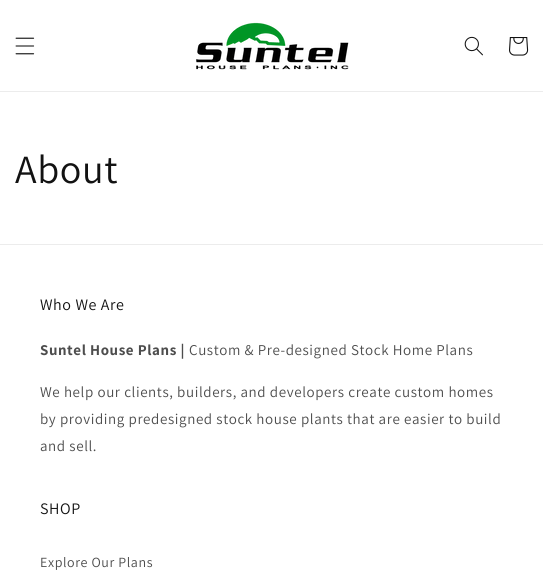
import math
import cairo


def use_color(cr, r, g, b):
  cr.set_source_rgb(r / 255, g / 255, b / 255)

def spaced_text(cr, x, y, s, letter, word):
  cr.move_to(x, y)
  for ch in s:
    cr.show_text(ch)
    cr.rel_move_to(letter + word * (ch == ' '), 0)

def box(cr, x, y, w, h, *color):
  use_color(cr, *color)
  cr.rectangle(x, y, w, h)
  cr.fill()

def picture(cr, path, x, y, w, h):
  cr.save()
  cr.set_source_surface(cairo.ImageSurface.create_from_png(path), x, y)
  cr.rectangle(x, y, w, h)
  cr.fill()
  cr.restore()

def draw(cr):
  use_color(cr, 255, 255, 255)
  cr.paint()
  box(cr, 0, 91, 543, 1, 236, 236, 236)
  picture(cr, "img_01.png", 15, 37, 20, 18)
  picture(cr, "img_02.png", 196, 22, 153, 48)
  picture(cr, "img_03.png", 464, 36, 19, 20)
  picture(cr, "img_04.png", 509, 37, 20, 19)
  box(cr, 0, 244, 543, 1, 236, 236, 236)
  cr.select_font_face("Assistant")
  cr.set_font_size(40)
  use_color(cr, 18, 18, 18)
  spaced_text(cr, 15, 183, "About", 0.6, 0)
  cr.set_font_size(16)
  spaced_text(cr, 40, 310, "Who We Are", 0.6, 0)
  cr.select_font_face("Assistant", cairo.FONT_SLANT_NORMAL, cairo.FONT_WEIGHT_BOLD)
  cr.set_font_size(15)
  use_color(cr, 77, 77, 77)
  spaced_text(cr, 40, 355, "Suntel House Plans |", 0.6, 0)
  cr.select_font_face("Assistant")
  spaced_text(cr, 189, 355, "Custom & Pre-designed Stock Home Plans", 0.6, 0)
  spaced_text(cr, 40, 397, "We help our clients, builders, and developers create custom homes", 0.6, 0)
  spaced_text(cr, 40, 424, "by providing predesigned stock house plants that are easier to build", 0.6, 0)
  spaced_text(cr, 40, 451, "and sell.", 0.6, 0)
  cr.set_font_size(16)
  use_color(cr, 18, 18, 18)
  spaced_text(cr, 40, 514, "SHOP", 0.6, 0)
  cr.set_font_size(14)
  use_color(cr, 77, 77, 77)
  spaced_text(cr, 40, 567, "Explore Our Plans", 0.6, 0)


surface = cairo.ImageSurface(cairo.FORMAT_RGB24, 543, 587)
cr = cairo.Context(surface)
options = cairo.FontOptions()
options.set_hint_metrics(cairo.HINT_METRICS_OFF)
options.set_hint_style(cairo.HINT_STYLE_NONE)
cr.set_font_options(options)
cr.set_miter_limit(4)
draw(cr)
surface.write_to_png("out.png")
